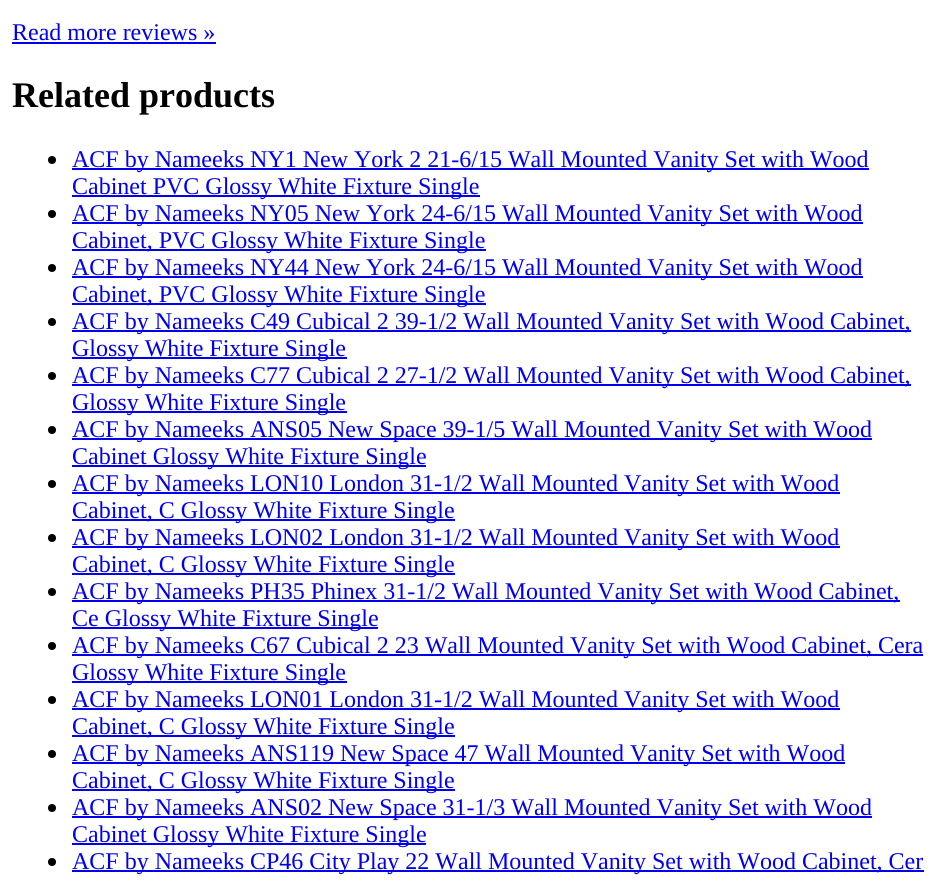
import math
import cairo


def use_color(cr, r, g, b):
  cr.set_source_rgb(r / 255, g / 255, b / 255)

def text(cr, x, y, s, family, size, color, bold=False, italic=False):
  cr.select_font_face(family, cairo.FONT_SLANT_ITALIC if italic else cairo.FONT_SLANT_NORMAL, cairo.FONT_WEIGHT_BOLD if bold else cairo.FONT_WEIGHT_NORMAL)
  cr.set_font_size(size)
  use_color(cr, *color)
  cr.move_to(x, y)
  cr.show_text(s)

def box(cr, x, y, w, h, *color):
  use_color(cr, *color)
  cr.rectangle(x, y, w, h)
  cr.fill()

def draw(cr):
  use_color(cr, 255, 255, 255)
  cr.paint()
  box(cr, 12, 42, 204, 2, 0, 0, 238)
  use_color(cr, 0, 0, 0)
  cr.arc(52, 160, 4, 0, 2 * math.pi)
  cr.fill()
  box(cr, 72, 168, 797, 2, 0, 0, 238)
  box(cr, 72, 195, 408, 2, 0, 0, 238)
  use_color(cr, 0, 0, 0)
  cr.arc(52, 214, 4, 0, 2 * math.pi)
  cr.fill()
  box(cr, 72, 222, 791, 2, 0, 0, 238)
  box(cr, 72, 249, 414, 2, 0, 0, 238)
  use_color(cr, 0, 0, 0)
  cr.arc(52, 268, 4, 0, 2 * math.pi)
  cr.fill()
  box(cr, 72, 276, 791, 2, 0, 0, 238)
  box(cr, 72, 303, 414, 2, 0, 0, 238)
  use_color(cr, 0, 0, 0)
  cr.arc(52, 322, 4, 0, 2 * math.pi)
  cr.fill()
  box(cr, 72, 330, 839, 2, 0, 0, 238)
  box(cr, 72, 357, 275, 2, 0, 0, 238)
  use_color(cr, 0, 0, 0)
  cr.arc(52, 376, 4, 0, 2 * math.pi)
  cr.fill()
  box(cr, 72, 384, 839, 2, 0, 0, 238)
  box(cr, 72, 411, 275, 2, 0, 0, 238)
  use_color(cr, 0, 0, 0)
  cr.arc(52, 430, 4, 0, 2 * math.pi)
  cr.fill()
  box(cr, 72, 438, 800, 2, 0, 0, 238)
  box(cr, 72, 465, 354, 2, 0, 0, 238)
  use_color(cr, 0, 0, 0)
  cr.arc(52, 484, 4, 0, 2 * math.pi)
  cr.fill()
  box(cr, 72, 492, 768, 2, 0, 0, 238)
  box(cr, 72, 519, 383, 2, 0, 0, 238)
  use_color(cr, 0, 0, 0)
  cr.arc(52, 538, 4, 0, 2 * math.pi)
  cr.fill()
  box(cr, 72, 546, 768, 2, 0, 0, 238)
  box(cr, 72, 573, 383, 2, 0, 0, 238)
  use_color(cr, 0, 0, 0)
  cr.arc(52, 592, 4, 0, 2 * math.pi)
  cr.fill()
  box(cr, 72, 600, 828, 2, 0, 0, 238)
  box(cr, 72, 627, 306, 2, 0, 0, 238)
  use_color(cr, 0, 0, 0)
  cr.arc(52, 646, 4, 0, 2 * math.pi)
  cr.fill()
  box(cr, 72, 654, 851, 2, 0, 0, 238)
  box(cr, 72, 681, 275, 2, 0, 0, 238)
  use_color(cr, 0, 0, 0)
  cr.arc(52, 700, 4, 0, 2 * math.pi)
  cr.fill()
  box(cr, 72, 708, 768, 2, 0, 0, 238)
  box(cr, 72, 735, 383, 2, 0, 0, 238)
  use_color(cr, 0, 0, 0)
  cr.arc(52, 754, 4, 0, 2 * math.pi)
  cr.fill()
  box(cr, 72, 762, 773, 2, 0, 0, 238)
  box(cr, 72, 789, 383, 2, 0, 0, 238)
  use_color(cr, 0, 0, 0)
  cr.arc(52, 808, 4, 0, 2 * math.pi)
  cr.fill()
  box(cr, 72, 816, 800, 2, 0, 0, 238)
  box(cr, 72, 843, 354, 2, 0, 0, 238)
  use_color(cr, 0, 0, 0)
  cr.arc(52, 862, 4, 0, 2 * math.pi)
  cr.fill()
  box(cr, 72, 870, 852, 2, 0, 0, 238)
  text(cr, 12, 40, "Read more reviews »", "Liberation Serif", 24, (0, 0, 238))
  text(cr, 12, 107, "Related products", "Liberation Serif", 36, (0, 0, 0), bold=True)
  text(cr, 72, 167, "ACF by Nameeks NY1 New York 2 21-6/15 Wall Mounted Vanity Set with Wood", "Liberation Serif", 24, (0, 0, 238))
  text(cr, 72, 194, "Cabinet PVC Glossy White Fixture Single", "Liberation Serif", 24, (0, 0, 238))
  text(cr, 72, 221, "ACF by Nameeks NY05 New York 24-6/15 Wall Mounted Vanity Set with Wood", "Liberation Serif", 24, (0, 0, 238))
  text(cr, 72, 248, "Cabinet, PVC Glossy White Fixture Single", "Liberation Serif", 24, (0, 0, 238))
  text(cr, 72, 275, "ACF by Nameeks NY44 New York 24-6/15 Wall Mounted Vanity Set with Wood", "Liberation Serif", 24, (0, 0, 238))
  text(cr, 72, 302, "Cabinet, PVC Glossy White Fixture Single", "Liberation Serif", 24, (0, 0, 238))
  text(cr, 72, 329, "ACF by Nameeks C49 Cubical 2 39-1/2 Wall Mounted Vanity Set with Wood Cabinet,", "Liberation Serif", 24, (0, 0, 238))
  text(cr, 72, 356, "Glossy White Fixture Single", "Liberation Serif", 24, (0, 0, 238))
  text(cr, 72, 383, "ACF by Nameeks C77 Cubical 2 27-1/2 Wall Mounted Vanity Set with Wood Cabinet,", "Liberation Serif", 24, (0, 0, 238))
  text(cr, 72, 410, "Glossy White Fixture Single", "Liberation Serif", 24, (0, 0, 238))
  text(cr, 72, 437, "ACF by Nameeks ANS05 New Space 39-1/5 Wall Mounted Vanity Set with Wood", "Liberation Serif", 24, (0, 0, 238))
  text(cr, 72, 464, "Cabinet Glossy White Fixture Single", "Liberation Serif", 24, (0, 0, 238))
  text(cr, 72, 491, "ACF by Nameeks LON10 London 31-1/2 Wall Mounted Vanity Set with Wood", "Liberation Serif", 24, (0, 0, 238))
  text(cr, 72, 518, "Cabinet, C Glossy White Fixture Single", "Liberation Serif", 24, (0, 0, 238))
  text(cr, 72, 545, "ACF by Nameeks LON02 London 31-1/2 Wall Mounted Vanity Set with Wood", "Liberation Serif", 24, (0, 0, 238))
  text(cr, 72, 572, "Cabinet, C Glossy White Fixture Single", "Liberation Serif", 24, (0, 0, 238))
  text(cr, 72, 599, "ACF by Nameeks PH35 Phinex 31-1/2 Wall Mounted Vanity Set with Wood Cabinet,", "Liberation Serif", 24, (0, 0, 238))
  text(cr, 72, 626, "Ce Glossy White Fixture Single", "Liberation Serif", 24, (0, 0, 238))
  text(cr, 72, 653, "ACF by Nameeks C67 Cubical 2 23 Wall Mounted Vanity Set with Wood Cabinet, Cera", "Liberation Serif", 24, (0, 0, 238))
  text(cr, 72, 680, "Glossy White Fixture Single", "Liberation Serif", 24, (0, 0, 238))
  text(cr, 72, 707, "ACF by Nameeks LON01 London 31-1/2 Wall Mounted Vanity Set with Wood", "Liberation Serif", 24, (0, 0, 238))
  text(cr, 72, 734, "Cabinet, C Glossy White Fixture Single", "Liberation Serif", 24, (0, 0, 238))
  text(cr, 72, 761, "ACF by Nameeks ANS119 New Space 47 Wall Mounted Vanity Set with Wood", "Liberation Serif", 24, (0, 0, 238))
  text(cr, 72, 788, "Cabinet, C Glossy White Fixture Single", "Liberation Serif", 24, (0, 0, 238))
  text(cr, 72, 815, "ACF by Nameeks ANS02 New Space 31-1/3 Wall Mounted Vanity Set with Wood", "Liberation Serif", 24, (0, 0, 238))
  text(cr, 72, 842, "Cabinet Glossy White Fixture Single", "Liberation Serif", 24, (0, 0, 238))
  text(cr, 72, 869, "ACF by Nameeks CP46 City Play 22 Wall Mounted Vanity Set with Wood Cabinet, Cer", "Liberation Serif", 24, (0, 0, 238))


surface = cairo.ImageSurface(cairo.FORMAT_RGB24, 936, 883)
cr = cairo.Context(surface)
options = cairo.FontOptions()
options.set_hint_metrics(cairo.HINT_METRICS_OFF)
options.set_hint_style(cairo.HINT_STYLE_NONE)
cr.set_font_options(options)
cr.set_miter_limit(4)
draw(cr)
surface.write_to_png("out.png")
